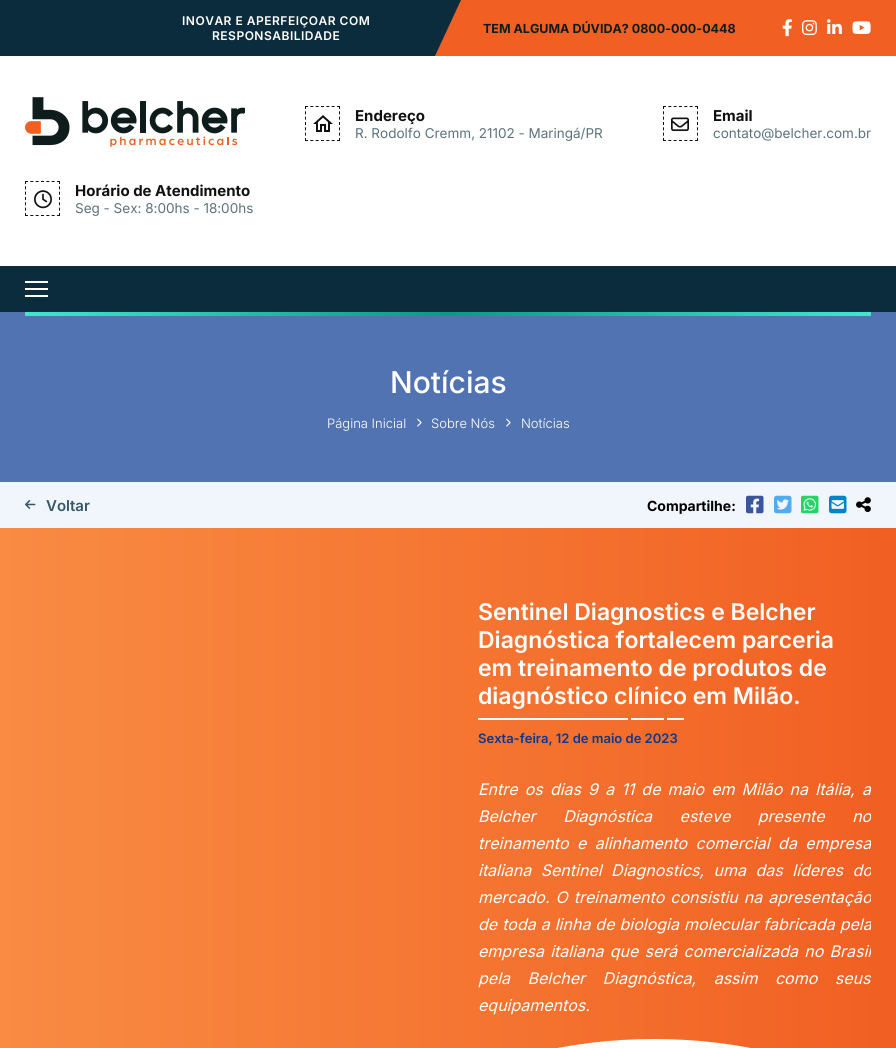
import math
import cairo


def use_color(cr, r, g, b):
  cr.set_source_rgb(r / 255, g / 255, b / 255)

def text(cr, x, y, s, family, size, color, bold=False, italic=False):
  cr.select_font_face(family, cairo.FONT_SLANT_ITALIC if italic else cairo.FONT_SLANT_NORMAL, cairo.FONT_WEIGHT_BOLD if bold else cairo.FONT_WEIGHT_NORMAL)
  cr.set_font_size(size)
  use_color(cr, *color)
  cr.move_to(x, y)
  cr.show_text(s)

def spaced_text(cr, x, y, s, letter, word):
  cr.move_to(x, y)
  for ch in s:
    cr.show_text(ch)
    cr.rel_move_to(letter + word * (ch == ' '), 0)

def box(cr, x, y, w, h, *color):
  use_color(cr, *color)
  cr.rectangle(x, y, w, h)
  cr.fill()

def picture(cr, path, x, y, w, h):
  cr.save()
  cr.set_source_surface(cairo.ImageSurface.create_from_png(path), x, y)
  cr.rectangle(x, y, w, h)
  cr.fill()
  cr.restore()

def draw(cr):
  use_color(cr, 255, 255, 255)
  cr.paint()
  box(cr, 0, 0, 461, 56, 11, 44, 61)
  use_color(cr, 241, 95, 34)
  cr.new_path()
  cr.move_to(461, 0)
  cr.line_to(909, 0)
  cr.line_to(883, 56)
  cr.line_to(435, 56)
  cr.close_path()
  cr.fill()
  cr.new_path()
  cr.move_to(735, 0)
  cr.line_to(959, 0)
  cr.line_to(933, 56)
  cr.line_to(709, 56)
  cr.close_path()
  cr.fill()
  picture(cr, "img_01.png", 782, 19, 10, 18)
  picture(cr, "img_02.png", 802, 20, 15, 16)
  picture(cr, "img_03.png", 827, 19, 15, 15)
  picture(cr, "img_04.png", 852, 21, 19, 13)
  picture(cr, "img_05.png", 25, 97, 220, 50)
  cr.new_path()
  cr.move_to(305, 106.5)
  cr.line_to(340, 106.5)
  cr.move_to(339.5, 106)
  cr.line_to(339.5, 141)
  cr.move_to(305, 140.5)
  cr.line_to(340, 140.5)
  cr.move_to(305.5, 106)
  cr.line_to(305.5, 141)
  use_color(cr, 16, 16, 16)
  cr.set_line_width(1)
  cr.set_dash([3, 2.33])
  cr.stroke()
  picture(cr, "img_06.png", 313, 115, 20, 17)
  cr.new_path()
  cr.move_to(663, 106.5)
  cr.line_to(698, 106.5)
  cr.move_to(697.5, 106)
  cr.line_to(697.5, 141)
  cr.move_to(663, 140.5)
  cr.line_to(698, 140.5)
  cr.move_to(663.5, 106)
  cr.line_to(663.5, 141)
  cr.stroke()
  picture(cr, "img_07.png", 671, 117, 18, 14)
  cr.new_path()
  cr.move_to(25, 181.5)
  cr.line_to(60, 181.5)
  cr.move_to(59.5, 181)
  cr.line_to(59.5, 216)
  cr.move_to(25, 215.5)
  cr.line_to(60, 215.5)
  cr.move_to(25.5, 181)
  cr.line_to(25.5, 216)
  cr.stroke()
  picture(cr, "img_08.png", 34, 190, 18, 19)
  box(cr, 0, 266, 896, 46, 11, 44, 61)
  box(cr, 25, 281, 23, 2, 255, 255, 255)
  box(cr, 25, 295, 23, 2, 255, 255, 255)
  box(cr, 25, 288, 23, 2, 255, 255, 255)
  box(cr, 0, 312, 896, 170, 82, 115, 178)
  gradient = cairo.LinearGradient(25, 314, 871, 314)
  gradient.add_color_stop_rgba(0, 0.251, 0.902, 0.812, 1)
  gradient.add_color_stop_rgba(0.5, 0.047, 0.6, 0.525, 1)
  gradient.add_color_stop_rgba(1, 0.251, 0.902, 0.812, 1)
  cr.set_source(gradient)
  cr.rectangle(25, 312, 846, 4)
  cr.fill()
  picture(cr, "img_09.png", 417, 418, 5, 9)
  picture(cr, "img_09.png", 506, 418, 5, 9)
  box(cr, 0, 482, 896, 46, 241, 246, 252)
  picture(cr, "img_10.png", 25, 500, 11, 9)
  picture(cr, "img_11.png", 746, 495, 18, 19)
  picture(cr, "img_12.png", 774, 495, 18, 19)
  picture(cr, "img_13.png", 801, 495, 18, 19)
  picture(cr, "img_14.png", 829, 495, 18, 19)
  picture(cr, "img_15.png", 856, 497, 15, 15)
  gradient = cairo.LinearGradient(0, 829, 896, 829)
  gradient.add_color_stop_rgba(0, 0.976, 0.545, 0.263, 1)
  gradient.add_color_stop_rgba(0.25, 0.969, 0.506, 0.227, 1)
  gradient.add_color_stop_rgba(0.5, 0.961, 0.463, 0.196, 1)
  gradient.add_color_stop_rgba(0.75, 0.953, 0.42, 0.165, 1)
  gradient.add_color_stop_rgba(1, 0.945, 0.373, 0.133, 1)
  cr.set_source(gradient)
  cr.rectangle(0, 528, 896, 520)
  cr.fill()
  box(cr, 478, 718, 150, 2, 255, 255, 255)
  box(cr, 667, 718, 17, 2, 255, 255, 255)
  box(cr, 631, 718, 33, 2, 255, 255, 255)
  cr.new_path()
  cr.move_to(654, 1039)
  cr.curve_to(829, 1039, 971, 1124, 971, 1229)
  cr.curve_to(971, 1334, 829, 1419, 654, 1419)
  cr.curve_to(479, 1419, 337, 1334, 337, 1229)
  cr.curve_to(337, 1124, 479, 1039, 654, 1039)
  cr.close_path()
  cr.fill()
  cr.select_font_face("Inter SemiBold")
  cr.set_font_size(12)
  spaced_text(cr, 182, 25, "INOVAR E APERFEIÇOAR COM", 0.5, 0)
  spaced_text(cr, 212, 40, "RESPONSABILIDADE", 0.5, 0)
  text(cr, 483, 33, "TEM ALGUMA DÚVIDA? 0800-000-0448", "Inter", 12.5, (15, 28, 28), bold=True)
  text(cr, 355, 121, "Endereço", "Inter", 15, (16, 16, 16), bold=True)
  text(cr, 355, 138, "R. Rodolfo Cremm, 21102 - Maringá/PR", "Inter", 13.5, (92, 114, 125))
  text(cr, 713, 121, "Email", "Inter", 15, (16, 16, 16), bold=True)
  text(cr, 713, 138, "contato@belcher.com.br", "Inter", 13.5, (92, 114, 125))
  text(cr, 75, 196, "Horário de Atendimento", "Inter", 15, (16, 16, 16), bold=True)
  text(cr, 75, 213, "Seg - Sex: 8:00hs - 18:00hs", "Inter", 13.5, (92, 114, 125))
  text(cr, 390, 393, "Notícias", "Inter Medium", 30, (255, 255, 255))
  text(cr, 327, 428, "Página Inicial", "Inter Light", 13, (255, 255, 255))
  text(cr, 431, 428, "Sobre Nós", "Inter Light", 13, (255, 255, 255))
  text(cr, 521, 428, "Notícias", "Inter Light", 13, (255, 255, 255))
  text(cr, 46, 511, "Voltar", "Inter SemiBold", 15, (53, 87, 104))
  text(cr, 647, 511, "Compartilhe:", "Inter", 14, (0, 0, 0), bold=True)
  text(cr, 478, 620, "Sentinel Diagnostics e Belcher", "Inter SemiBold", 23, (255, 255, 255))
  text(cr, 478, 648, "Diagnóstica fortalecem parceria", "Inter SemiBold", 23, (255, 255, 255))
  text(cr, 478, 676, "em treinamento de produtos de", "Inter SemiBold", 23, (255, 255, 255))
  text(cr, 478, 704, "diagnóstico clínico em Milão.", "Inter SemiBold", 23, (255, 255, 255))
  text(cr, 478, 743, "Sexta-feira, 12 de maio de 2023", "Inter SemiBold", 13, (8, 55, 145))
  cr.save()
  cr.rectangle(448, 598, 423, 421)
  cr.clip()
  cr.select_font_face("Inter", cairo.FONT_SLANT_ITALIC)
  cr.set_font_size(16)
  use_color(cr, 255, 255, 255)
  spaced_text(cr, 478, 795, "Entre os dias 9 a 11 de maio em Milão na Itália, a", 0, 2.6)
  spaced_text(cr, 478, 822, "Belcher Diagnóstica esteve presente no", 0, 23)
  spaced_text(cr, 478, 849, "treinamento e alinhamento comercial da empresa", 0, 4)
  spaced_text(cr, 478, 876, "italiana Sentinel Diagnostics, uma das líderes do", 0, 5)
  spaced_text(cr, 478, 903, "mercado. O treinamento consistiu na apresentação", 0, 1.5)
  spaced_text(cr, 478, 930, "de toda a linha de biologia molecular fabricada pela", 0, 0.5)
  spaced_text(cr, 478, 957, "empresa italiana que será comercializada no Brasil", 0, 1.75)
  cr.restore()
  cr.select_font_face("Inter", cairo.FONT_SLANT_ITALIC)
  cr.set_font_size(16)
  use_color(cr, 255, 255, 255)
  spaced_text(cr, 478, 984, "pela Belcher Diagnóstica, assim como seus", 0, 13)
  text(cr, 478, 1011, "equipamentos.", "Inter", 16, (255, 255, 255), italic=True)


surface = cairo.ImageSurface(cairo.FORMAT_RGB24, 896, 1048)
cr = cairo.Context(surface)
options = cairo.FontOptions()
options.set_hint_metrics(cairo.HINT_METRICS_OFF)
options.set_hint_style(cairo.HINT_STYLE_NONE)
cr.set_font_options(options)
cr.set_miter_limit(4)
draw(cr)
surface.write_to_png("out.png")
